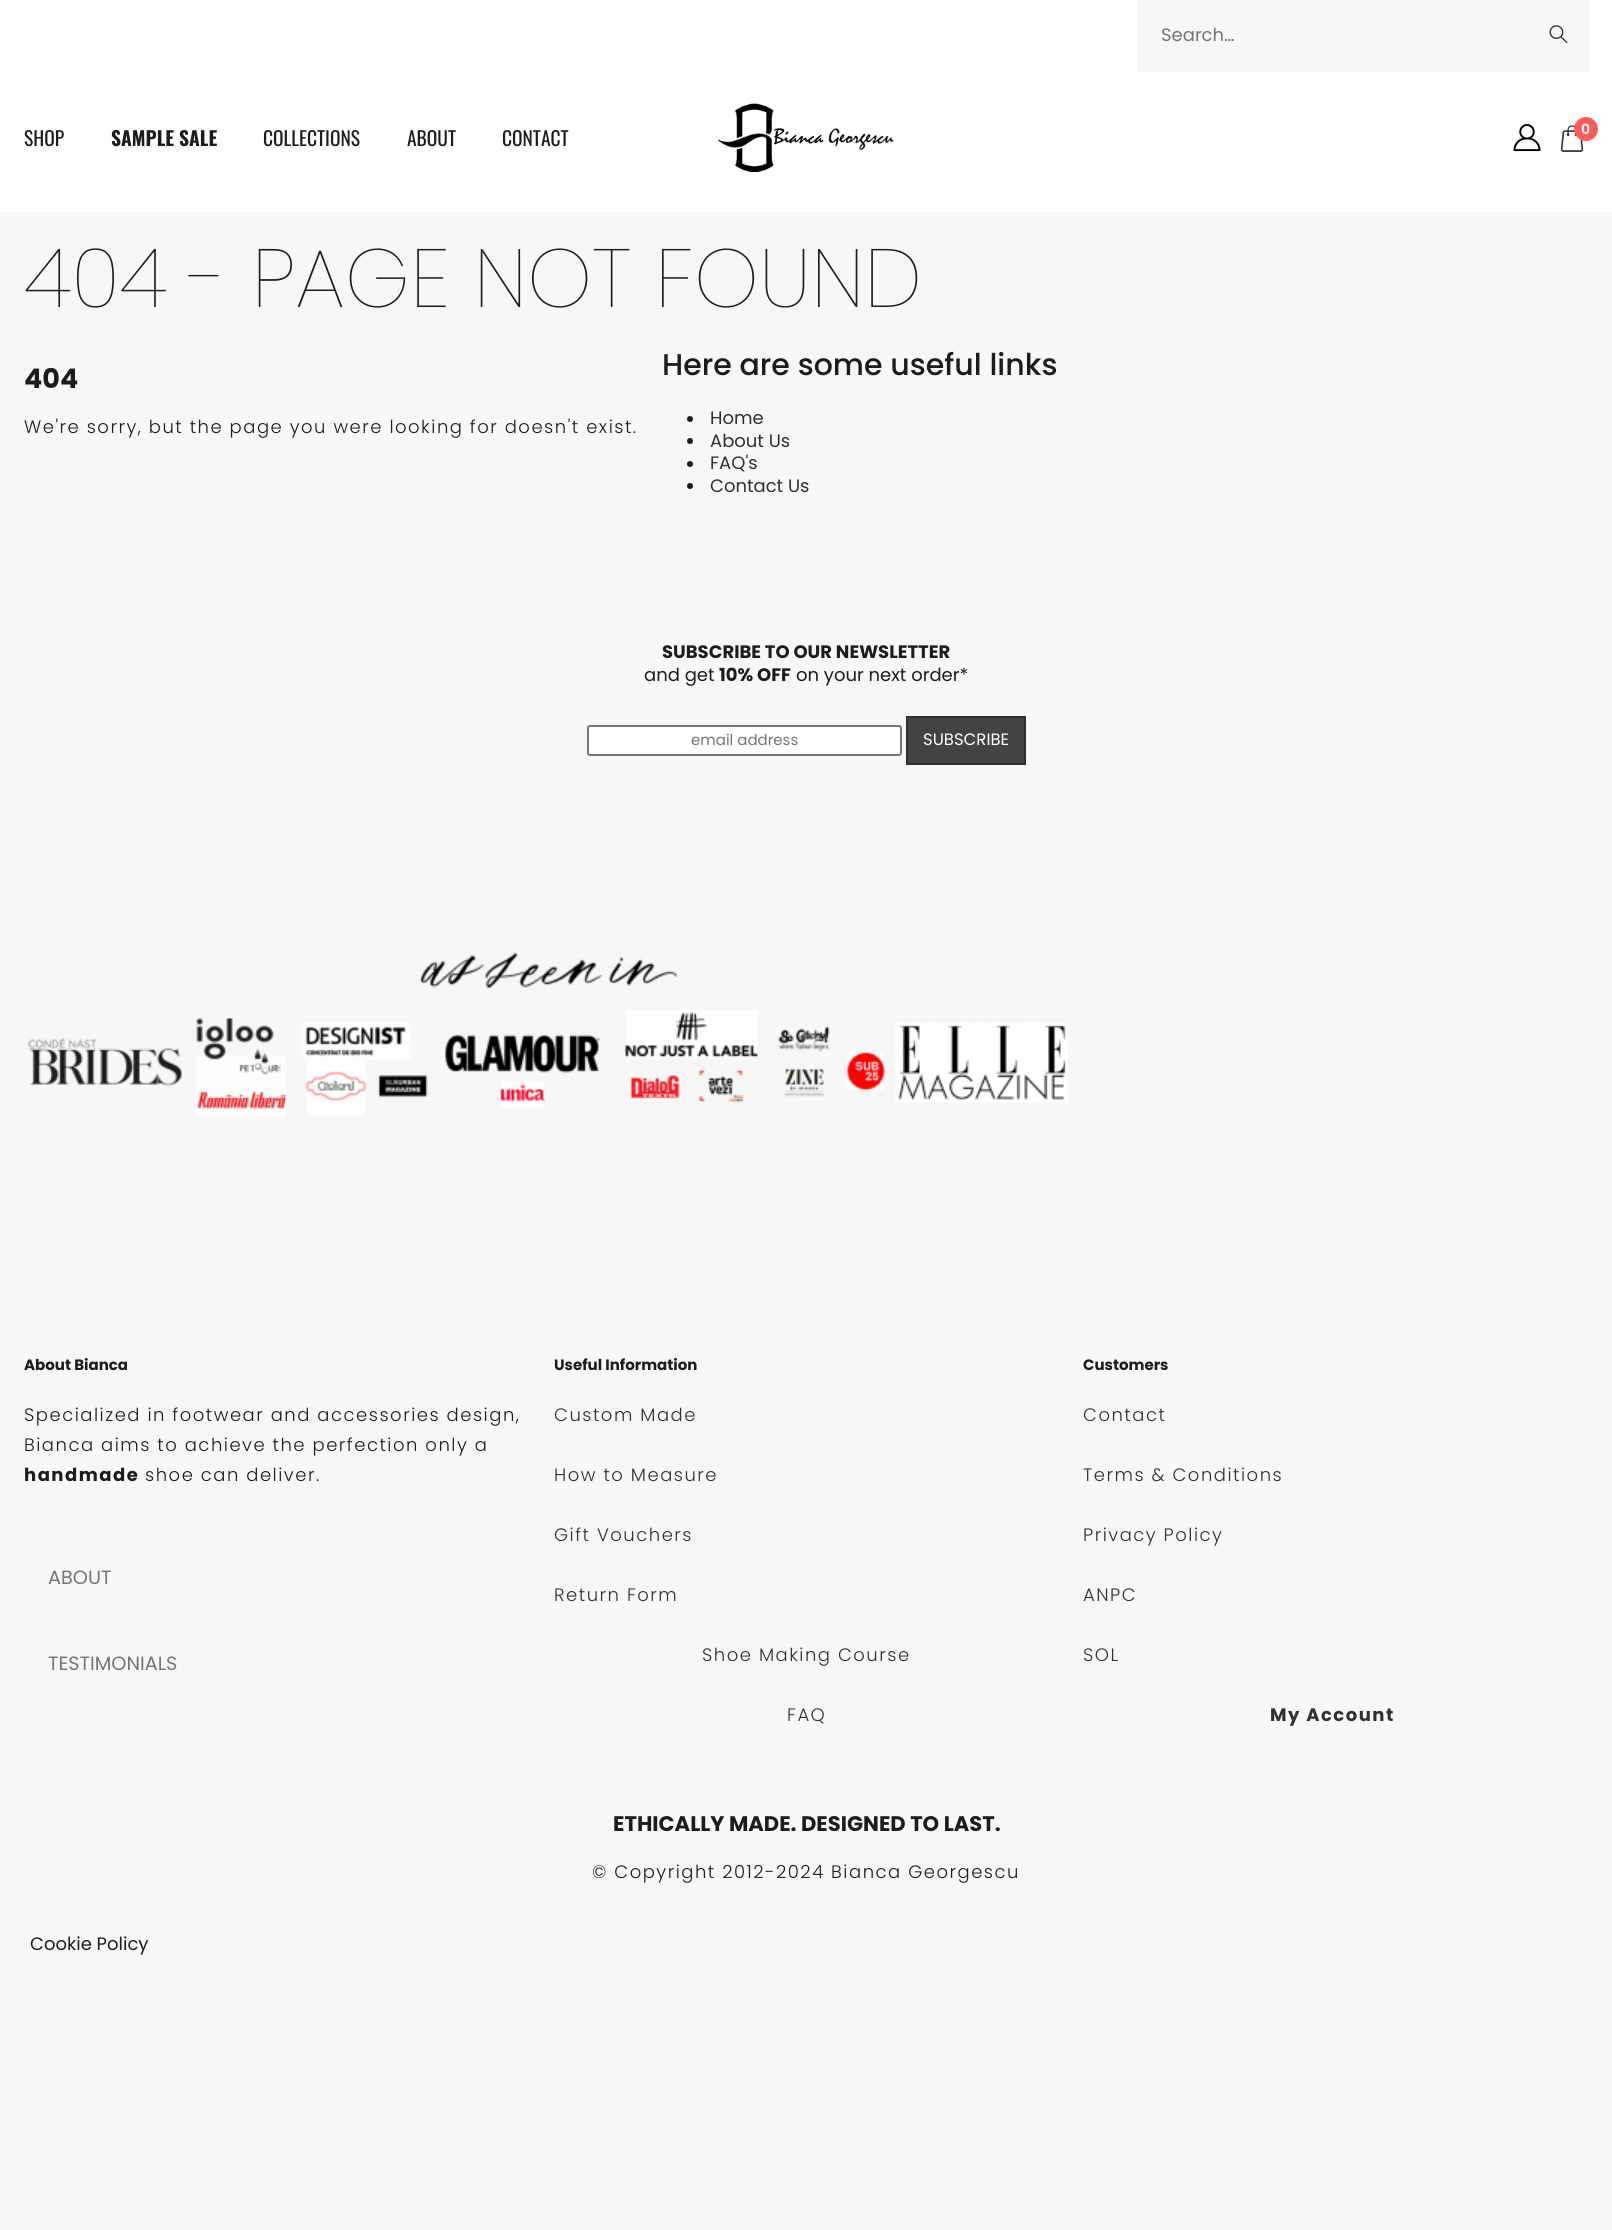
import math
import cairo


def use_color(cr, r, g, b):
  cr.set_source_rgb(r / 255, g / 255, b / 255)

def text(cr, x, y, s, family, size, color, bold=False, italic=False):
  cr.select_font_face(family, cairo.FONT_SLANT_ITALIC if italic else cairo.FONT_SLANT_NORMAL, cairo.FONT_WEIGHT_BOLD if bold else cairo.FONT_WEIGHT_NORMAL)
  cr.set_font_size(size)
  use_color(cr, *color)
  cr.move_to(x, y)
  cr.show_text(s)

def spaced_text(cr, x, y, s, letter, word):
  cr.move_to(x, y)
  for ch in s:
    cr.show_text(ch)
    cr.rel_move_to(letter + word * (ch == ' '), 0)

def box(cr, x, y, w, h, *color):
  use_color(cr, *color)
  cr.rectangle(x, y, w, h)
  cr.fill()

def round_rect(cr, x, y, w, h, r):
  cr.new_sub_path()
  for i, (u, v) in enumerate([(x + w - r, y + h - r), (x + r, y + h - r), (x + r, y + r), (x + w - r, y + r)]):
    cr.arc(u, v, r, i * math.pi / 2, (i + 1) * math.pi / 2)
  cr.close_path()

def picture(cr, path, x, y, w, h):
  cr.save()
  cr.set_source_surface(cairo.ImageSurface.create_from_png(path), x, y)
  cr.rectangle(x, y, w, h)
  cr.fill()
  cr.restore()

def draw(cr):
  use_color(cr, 247, 247, 247)
  cr.paint()
  box(cr, 0, 0, 1612, 212, 255, 255, 255)
  box(cr, 1137, 0, 452, 72, 247, 247, 247)
  picture(cr, "img_01.png", 1549, 25, 19, 19)
  picture(cr, "img_02.png", 717, 103, 177, 69)
  picture(cr, "img_03.png", 1513, 124, 28, 28)
  picture(cr, "img_04.png", 1560, 125, 24, 27)
  use_color(cr, 255, 91, 91)
  cr.arc(1586, 129, 12, 0, 2 * math.pi)
  cr.fill()
  use_color(cr, 28, 28, 28)
  cr.arc(690, 419, 3, 0, 2 * math.pi)
  cr.fill()
  cr.arc(690, 441, 3, 0, 2 * math.pi)
  cr.fill()
  cr.arc(690, 464, 3, 0, 2 * math.pi)
  cr.fill()
  cr.arc(690, 486, 3, 0, 2 * math.pi)
  cr.fill()
  use_color(cr, 255, 255, 255)
  round_rect(cr, 588, 726, 313, 29, 2)
  cr.fill_preserve()
  use_color(cr, 118, 118, 118)
  cr.stroke()
  use_color(cr, 67, 67, 67)
  cr.rectangle(907, 717, 118, 47)
  cr.fill_preserve()
  use_color(cr, 48, 48, 48)
  cr.stroke()
  picture(cr, "img_05.png", 28, 952, 1040, 165)
  text(cr, 1161, 41, "Search…", "Poppins", 18, (117, 117, 117))
  text(cr, 1581, 134, "0", "Poppins SemiBold", 14, (255, 255, 255))
  text(cr, 24, 146, "SHOP", "Oswald", 19.5, (28, 28, 28))
  text(cr, 111, 146, "SAMPLE SALE", "Oswald", 19.5, (28, 28, 28), bold=True)
  text(cr, 263, 146, "COLLECTIONS", "Oswald", 19.5, (28, 28, 28))
  text(cr, 407, 146, "ABOUT", "Oswald", 19.5, (28, 28, 28))
  text(cr, 502, 146, "CONTACT", "Oswald", 19.5, (28, 28, 28))
  text(cr, 24, 307, "404 - PAGE NOT FOUND", "Poppins ExtraLight", 82.5, (28, 28, 28))
  text(cr, 24, 388, "404", "Poppins", 27, (28, 28, 28), bold=True)
  cr.select_font_face("Poppins Light")
  cr.set_font_size(18)
  spaced_text(cr, 24, 433, "We're sorry, but the page you were looking for doesn't exist.", 1.5, 0)
  text(cr, 662, 375, "Here are some useful links", "Poppins Medium", 30, (28, 28, 28))
  text(cr, 710, 424, "Home", "Poppins", 18, (48, 48, 48))
  text(cr, 710, 447, "About Us", "Poppins", 18, (48, 48, 48))
  text(cr, 710, 469, "FAQ's", "Poppins", 18, (48, 48, 48))
  text(cr, 710, 492, "Contact Us", "Poppins", 18, (48, 48, 48))
  text(cr, 662, 658, "SUBSCRIBE TO OUR NEWSLETTER", "Poppins", 18, (28, 28, 28), bold=True)
  text(cr, 644, 681, "and get", "Poppins", 18, (28, 28, 28))
  text(cr, 719, 681, "10% OFF", "Poppins", 18, (28, 28, 28), bold=True)
  text(cr, 796, 681, "on your next order*", "Poppins", 18, (28, 28, 28))
  text(cr, 691, 745, "email address", "Poppins", 15, (117, 117, 117))
  text(cr, 923, 745, "SUBSCRIBE", "Poppins", 16.5, (255, 255, 255))
  text(cr, 24, 1370, "About Bianca", "Poppins", 15, (28, 28, 28), bold=True)
  cr.select_font_face("Poppins Light")
  cr.set_font_size(18)
  spaced_text(cr, 24, 1421, "Specialized in footwear and accessories design,", 1.5, 0)
  spaced_text(cr, 24, 1451, "Bianca aims to achieve the perfection only a", 1.5, 0)
  cr.select_font_face("Poppins", cairo.FONT_SLANT_NORMAL, cairo.FONT_WEIGHT_BOLD)
  spaced_text(cr, 24, 1481, "handmade", 1.5, 0)
  cr.select_font_face("Poppins Light")
  spaced_text(cr, 145, 1481, "shoe can deliver.", 1.5, 0)
  text(cr, 48, 1584, "ABOUT", "Poppins", 19.25, (117, 117, 117))
  text(cr, 48, 1670, "TESTIMONIALS", "Poppins", 19.25, (117, 117, 117))
  text(cr, 554, 1370, "Useful Information", "Poppins", 15, (28, 28, 28), bold=True)
  cr.select_font_face("Poppins Light")
  cr.set_font_size(18)
  use_color(cr, 48, 48, 48)
  spaced_text(cr, 554, 1421, "Custom Made", 1.5, 0)
  spaced_text(cr, 554, 1481, "How to Measure", 1.5, 0)
  spaced_text(cr, 554, 1541, "Gift Vouchers", 1.5, 0)
  spaced_text(cr, 554, 1601, "Return Form", 1.5, 0)
  spaced_text(cr, 702, 1661, "Shoe Making Course", 1.5, 0)
  spaced_text(cr, 787, 1721, "FAQ", 1.5, 0)
  text(cr, 1083, 1370, "Customers", "Poppins", 15, (28, 28, 28), bold=True)
  cr.select_font_face("Poppins Light")
  cr.set_font_size(18)
  use_color(cr, 48, 48, 48)
  spaced_text(cr, 1083, 1421, "Contact", 1.5, 0)
  spaced_text(cr, 1083, 1481, "Terms & Conditions", 1.5, 0)
  spaced_text(cr, 1083, 1541, "Privacy Policy", 1.5, 0)
  spaced_text(cr, 1083, 1601, "ANPC", 1.5, 0)
  spaced_text(cr, 1083, 1661, "SOL", 1.5, 0)
  cr.select_font_face("Poppins", cairo.FONT_SLANT_NORMAL, cairo.FONT_WEIGHT_BOLD)
  spaced_text(cr, 1270, 1721, "My Account", 1.5, 0)
  text(cr, 613, 1831, "ETHICALLY MADE. DESIGNED TO LAST.", "Poppins", 21.1, (28, 28, 28), bold=True)
  cr.select_font_face("Poppins Light")
  cr.set_font_size(18)
  spaced_text(cr, 592, 1878, "© Copyright 2012-2024 Bianca Georgescu", 1.5, 0)
  text(cr, 30, 1950, "Cookie Policy", "Poppins", 18, (28, 28, 28))


surface = cairo.ImageSurface(cairo.FORMAT_RGB24, 1612, 2230)
cr = cairo.Context(surface)
options = cairo.FontOptions()
options.set_hint_metrics(cairo.HINT_METRICS_OFF)
options.set_hint_style(cairo.HINT_STYLE_NONE)
cr.set_font_options(options)
cr.set_miter_limit(4)
draw(cr)
surface.write_to_png("out.png")
